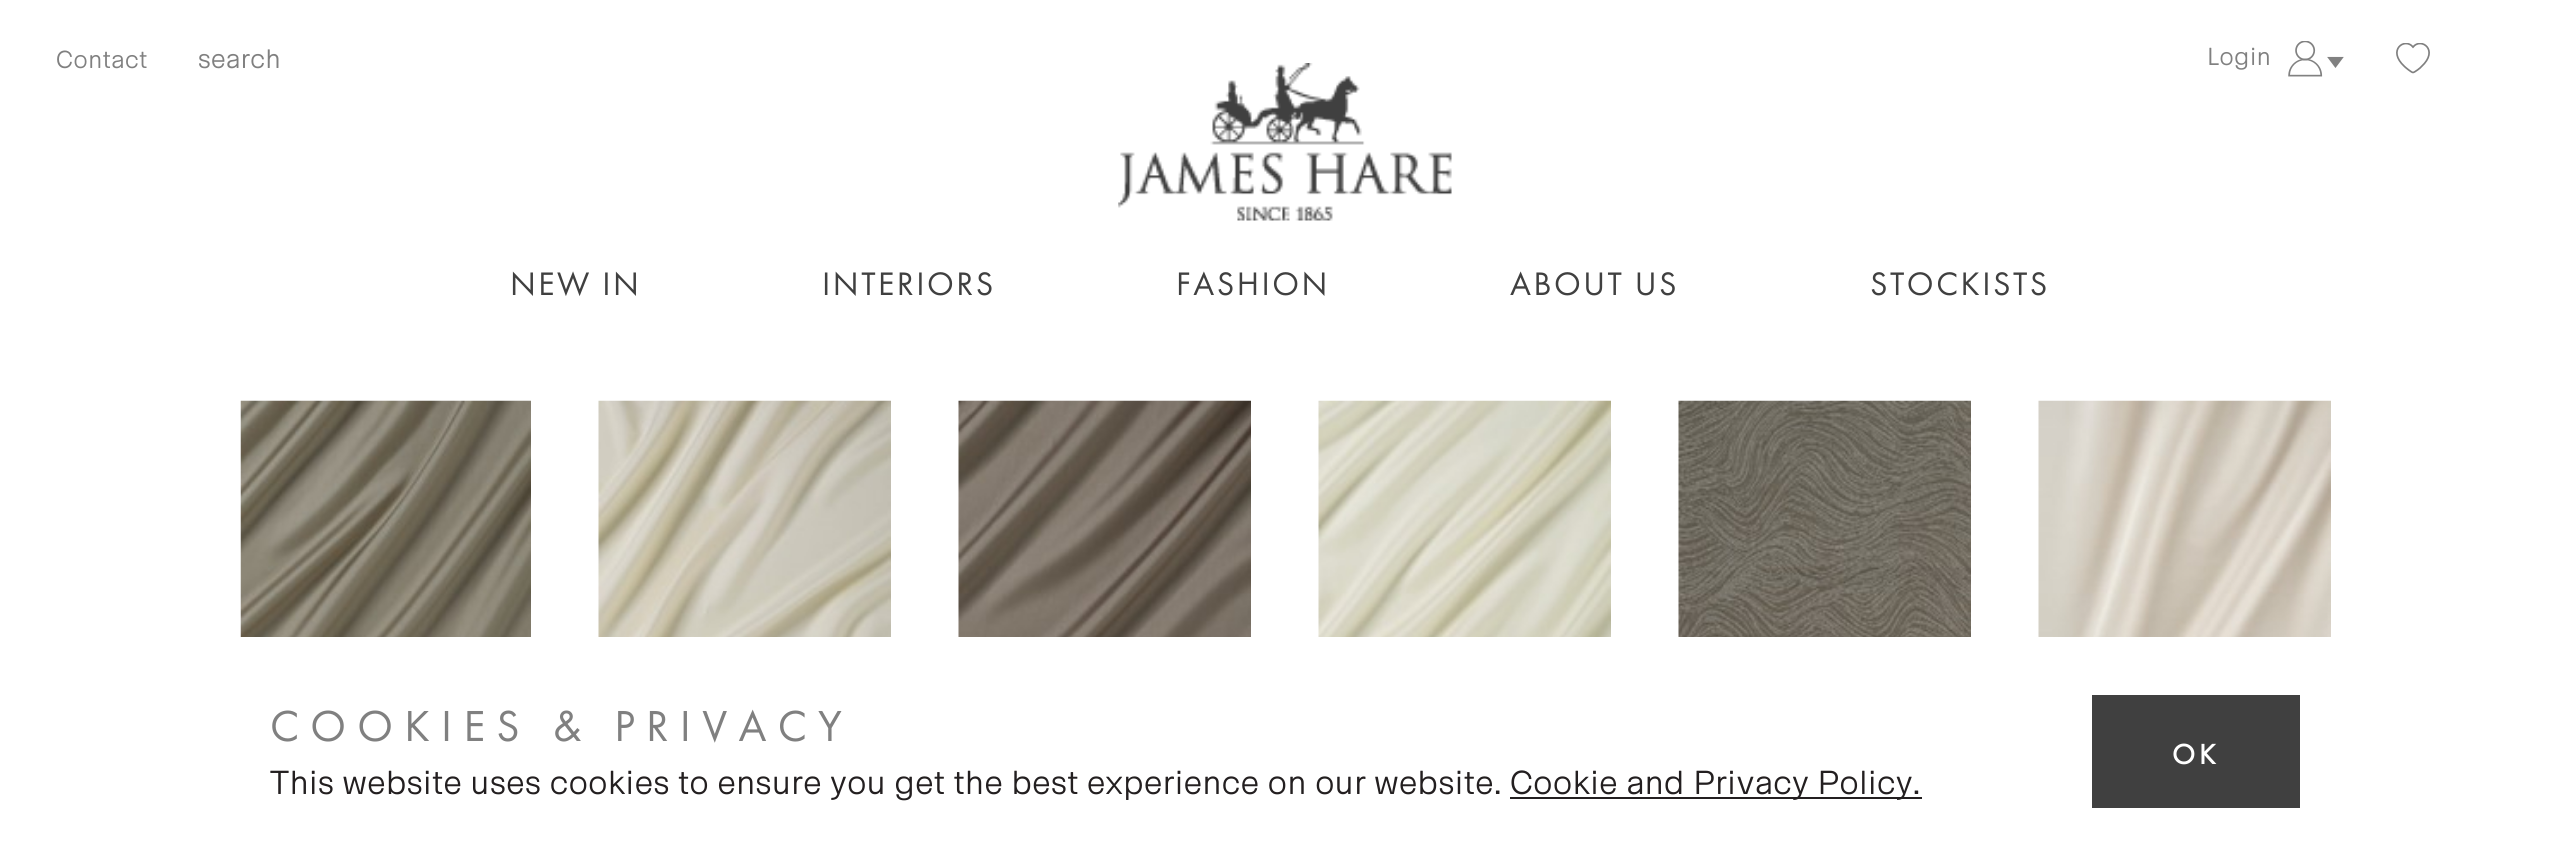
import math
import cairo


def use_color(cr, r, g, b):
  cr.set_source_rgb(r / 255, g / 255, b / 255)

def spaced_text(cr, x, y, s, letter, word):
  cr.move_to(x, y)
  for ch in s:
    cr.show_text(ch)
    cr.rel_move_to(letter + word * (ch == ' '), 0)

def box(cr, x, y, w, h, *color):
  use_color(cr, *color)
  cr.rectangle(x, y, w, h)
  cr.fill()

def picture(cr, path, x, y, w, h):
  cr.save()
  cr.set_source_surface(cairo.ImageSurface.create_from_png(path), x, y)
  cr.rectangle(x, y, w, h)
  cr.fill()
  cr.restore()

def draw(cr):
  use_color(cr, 255, 255, 255)
  cr.paint()
  picture(cr, "img_01.png", 2288, 41, 56, 36)
  cr.save()
  cr.rectangle(2396, 43, 34, 31)
  cr.clip()
  cr.new_path()
  cr.move_to(2413, 72.5)
  cr.curve_to(2411.5, 72.5, 2405.5, 67.5, 2404.5, 66.5)
  cr.curve_to(2386.5, 50, 2405, 37, 2413, 47)
  cr.curve_to(2421, 37, 2439.5, 50, 2421.5, 66.5)
  cr.curve_to(2421, 67.5, 2414.5, 72.5, 2413, 72.5)
  cr.close_path()
  use_color(cr, 128, 128, 128)
  cr.set_line_width(1.7)
  cr.stroke()
  cr.restore()
  picture(cr, "img_02.png", 1118, 63, 334, 158)
  picture(cr, "img_03.png", 240, 400, 291, 237)
  picture(cr, "img_04.png", 598, 400, 293, 237)
  picture(cr, "img_05.png", 958, 400, 293, 237)
  picture(cr, "img_06.png", 1318, 400, 293, 237)
  picture(cr, "img_07.png", 1678, 400, 293, 237)
  picture(cr, "img_08.png", 2038, 400, 293, 237)
  box(cr, 1510, 797, 412, 2, 35, 31, 32)
  box(cr, 2092, 695, 208, 113, 64, 64, 64)
  cr.select_font_face("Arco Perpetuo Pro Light")
  cr.set_font_size(25)
  use_color(cr, 128, 128, 128)
  spaced_text(cr, 56, 68, "Contact", 0.63, 0)
  cr.set_font_size(27)
  spaced_text(cr, 198, 68, "search", 0.5, 0)
  cr.set_font_size(25)
  spaced_text(cr, 2207, 65, "Login", 0.63, 0)
  cr.select_font_face("Futura PT")
  cr.set_font_size(33.75)
  use_color(cr, 64, 64, 64)
  spaced_text(cr, 510, 295, "NEW IN", 2.5, 0)
  spaced_text(cr, 822, 295, "INTERIORS", 2.5, 0)
  spaced_text(cr, 1176, 295, "FASHION", 2.5, 0)
  spaced_text(cr, 1510, 295, "ABOUT US", 2.5, 0)
  spaced_text(cr, 1870, 295, "STOCKISTS", 2.5, 0)
  cr.set_font_size(45)
  use_color(cr, 128, 128, 128)
  spaced_text(cr, 270, 741, "COOKIES & PRIVACY", 11.25, 0)
  cr.select_font_face("Arco Perpetuo Pro Light")
  cr.set_font_size(33.75)
  use_color(cr, 35, 31, 32)
  spaced_text(cr, 270, 794, "This website uses cookies to ensure you get the best experience on our website.", 0.63, 0)
  spaced_text(cr, 1510, 794, "Cookie and Privacy Policy.", 0.63, 0)
  cr.select_font_face("Futura PT", cairo.FONT_SLANT_NORMAL, cairo.FONT_WEIGHT_BOLD)
  cr.set_font_size(29)
  use_color(cr, 255, 255, 255)
  spaced_text(cr, 2172, 764, "OK", 4, 0)


surface = cairo.ImageSurface(cairo.FORMAT_RGB24, 2570, 866)
cr = cairo.Context(surface)
options = cairo.FontOptions()
options.set_hint_metrics(cairo.HINT_METRICS_OFF)
options.set_hint_style(cairo.HINT_STYLE_NONE)
cr.set_font_options(options)
cr.set_miter_limit(4)
draw(cr)
surface.write_to_png("out.png")
